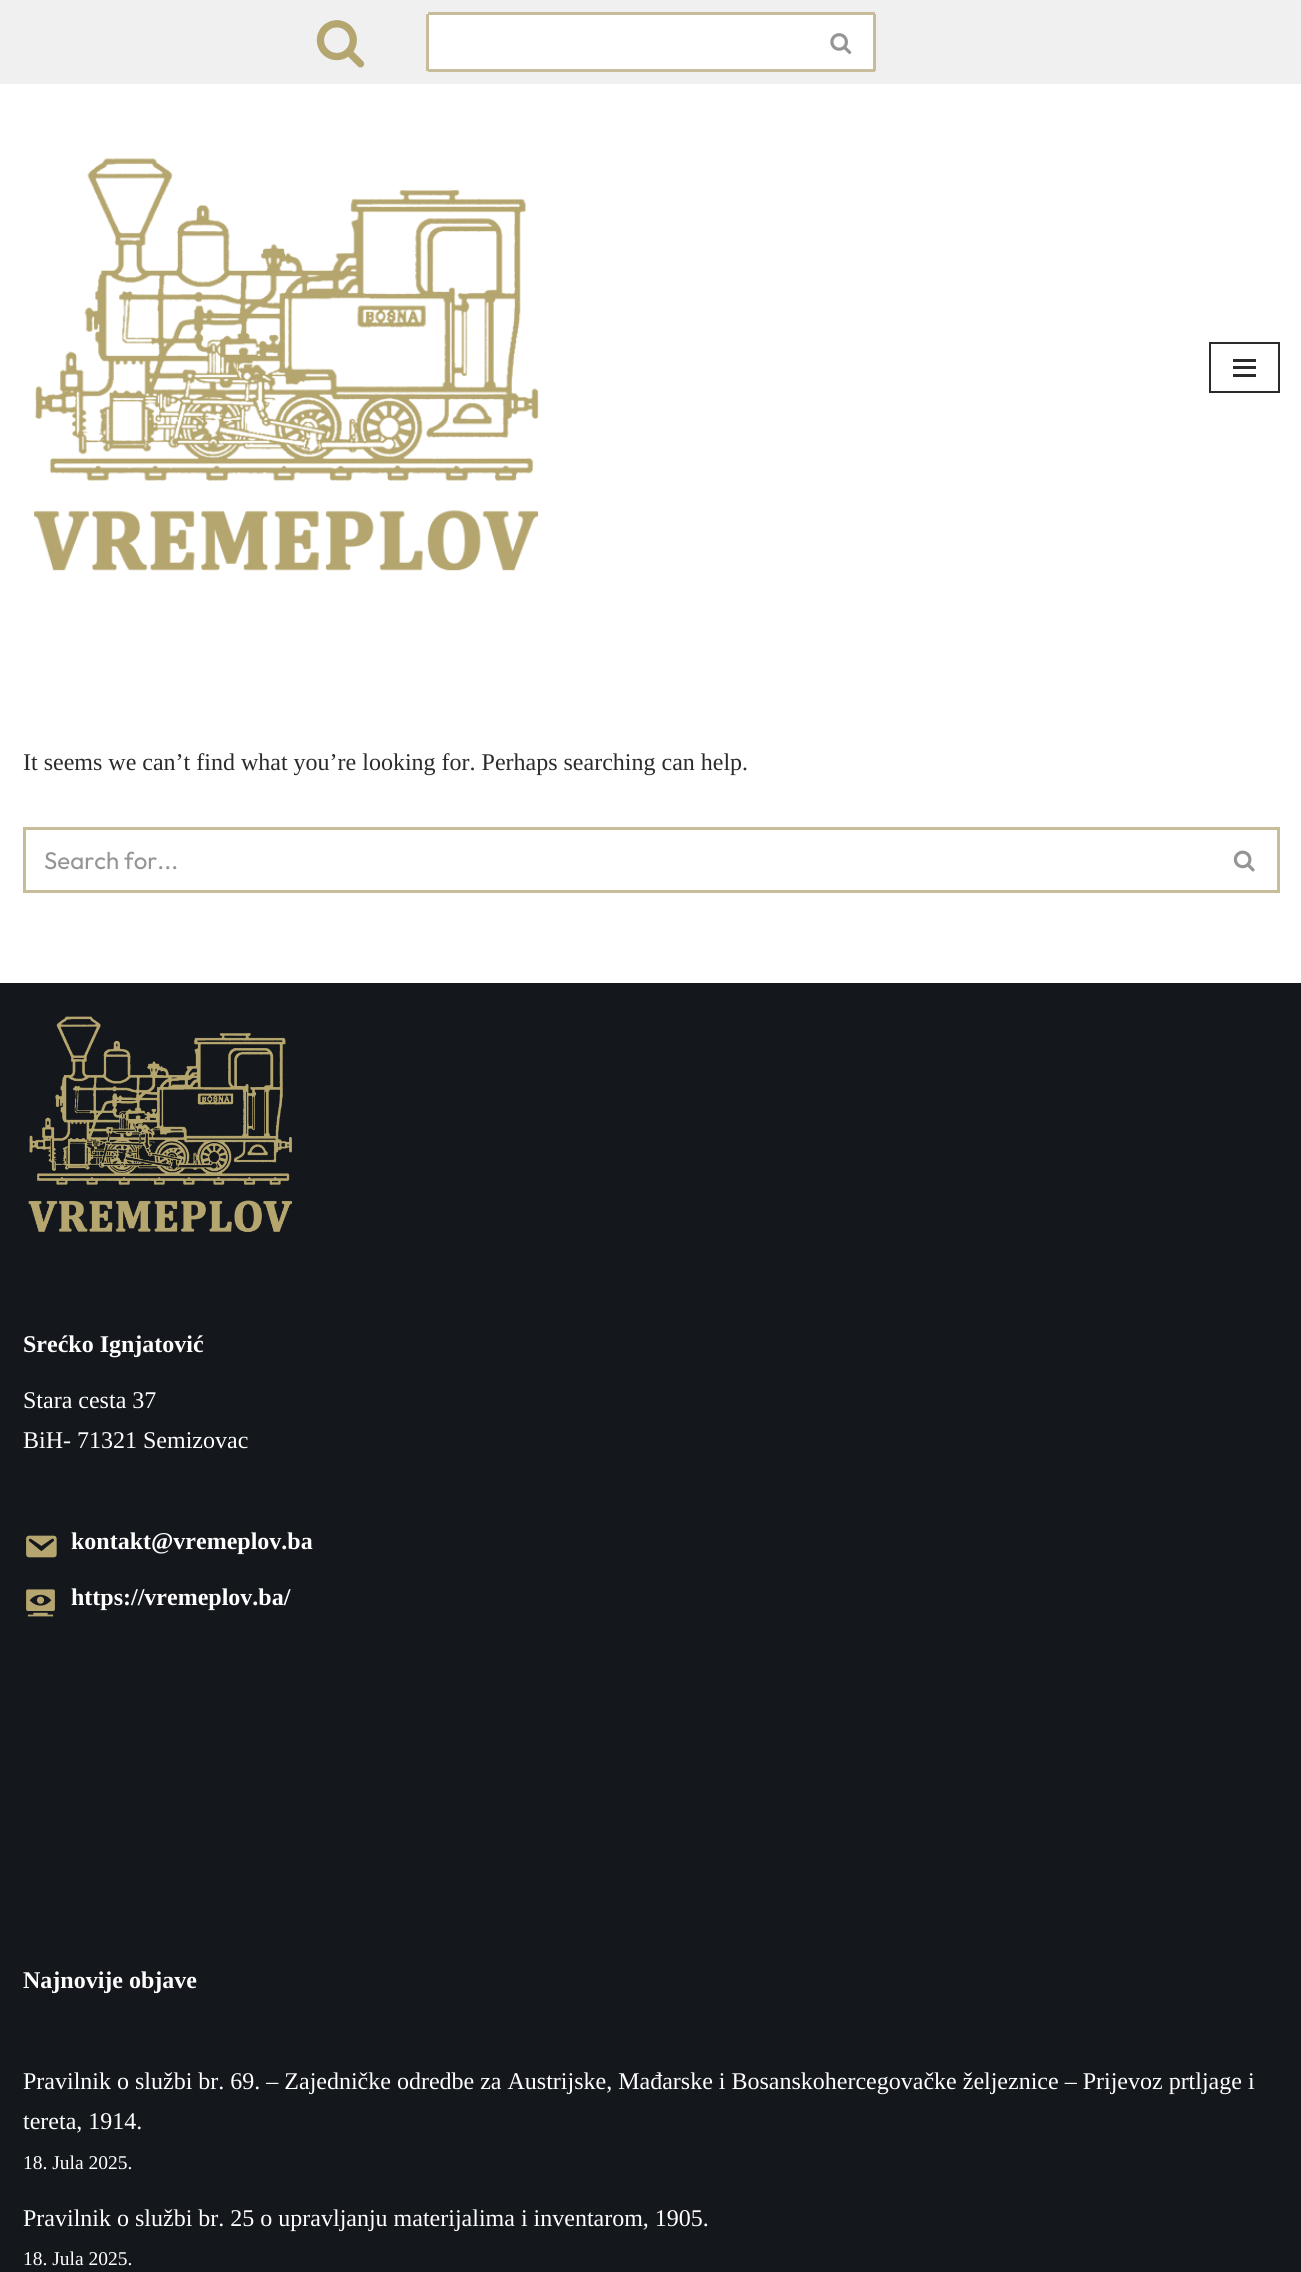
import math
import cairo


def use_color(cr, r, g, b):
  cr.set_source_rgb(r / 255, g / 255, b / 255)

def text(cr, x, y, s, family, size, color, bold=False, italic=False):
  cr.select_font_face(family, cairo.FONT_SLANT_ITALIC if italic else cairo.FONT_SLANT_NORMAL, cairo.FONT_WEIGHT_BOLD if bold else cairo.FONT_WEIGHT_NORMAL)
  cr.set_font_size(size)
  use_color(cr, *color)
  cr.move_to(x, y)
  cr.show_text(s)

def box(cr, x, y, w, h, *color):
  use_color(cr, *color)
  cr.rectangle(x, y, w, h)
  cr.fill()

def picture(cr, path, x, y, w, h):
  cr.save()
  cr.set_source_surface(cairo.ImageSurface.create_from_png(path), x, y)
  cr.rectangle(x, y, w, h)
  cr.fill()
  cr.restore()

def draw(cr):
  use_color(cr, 255, 255, 255)
  cr.paint()
  box(cr, 0, 0, 1301, 84, 240, 240, 240)
  picture(cr, "img_01.png", 316, 20, 49, 48)
  use_color(cr, 255, 255, 255)
  cr.new_path()
  cr.move_to(429, 12)
  cr.line_to(809, 12)
  cr.line_to(809, 72)
  cr.line_to(429, 72)
  cr.curve_to(427.5, 72, 426, 70.5, 426, 69)
  cr.line_to(426, 15)
  cr.curve_to(426, 13.5, 427.5, 12, 429, 12)
  cr.close_path()
  cr.fill()
  box(cr, 428, 12, 381, 3, 200, 189, 154)
  box(cr, 428, 69, 381, 3, 200, 189, 154)
  box(cr, 426, 14, 3, 57, 200, 189, 154)
  use_color(cr, 255, 255, 255)
  cr.new_path()
  cr.move_to(809, 12)
  cr.line_to(873, 12)
  cr.curve_to(874.5, 12, 876, 13.5, 876, 15)
  cr.line_to(876, 69)
  cr.curve_to(876, 70.5, 874.5, 72, 873, 72)
  cr.line_to(809, 72)
  cr.close_path()
  cr.fill()
  box(cr, 809, 12, 66, 3, 200, 189, 154)
  box(cr, 873, 14, 3, 57, 200, 189, 154)
  box(cr, 809, 69, 66, 3, 200, 189, 154)
  picture(cr, "img_02.png", 830, 33, 22, 21)
  picture(cr, "img_03.png", 34, 158, 505, 413)
  cr.rectangle(1210, 343, 69, 49)
  use_color(cr, 43, 43, 43)
  cr.stroke()
  box(cr, 1233, 359, 23, 3, 43, 43, 43)
  box(cr, 1233, 366, 23, 3, 43, 43, 43)
  box(cr, 1233, 374, 23, 3, 43, 43, 43)
  box(cr, 23, 827, 1257, 3, 200, 189, 154)
  box(cr, 23, 890, 1189, 3, 200, 189, 154)
  box(cr, 23, 827, 3, 66, 200, 189, 154)
  box(cr, 1277, 827, 3, 66, 200, 189, 154)
  box(cr, 1212, 890, 68, 3, 200, 189, 154)
  picture(cr, "img_04.png", 1233, 850, 22, 22)
  box(cr, 0, 983, 1301, 1289, 20, 23, 28)
  picture(cr, "img_05.png", 28, 1016, 264, 216)
  picture(cr, "img_06.png", 26, 1535, 31, 23)
  picture(cr, "img_07.png", 26, 1589, 29, 28)
  text(cr, 23, 770, "It seems we can’t find what you’re looking for. Perhaps searching can help.", "Tinos", 24, (43, 43, 43))
  text(cr, 44, 869, "Search for...", "Outfit", 24, (149, 149, 149))
  text(cr, 23, 1352, "Srećko Ignjatović", "Tinos", 24, (255, 255, 255), bold=True)
  text(cr, 23, 1408, "Stara cesta 37", "Tinos", 24, (255, 255, 255))
  text(cr, 23, 1448, "BiH- 71321 Semizovac", "Tinos", 24, (255, 255, 255))
  text(cr, 71, 1549, "kontakt@vremeplov.ba", "Tinos", 24, (255, 255, 255), bold=True)
  text(cr, 71, 1605, "https://vremeplov.ba/", "Tinos", 24, (255, 255, 255), bold=True)
  text(cr, 23, 1988, "Najnovije objave", "Tinos", 24, (255, 255, 255), bold=True)
  text(cr, 23, 2089, "Pravilnik o službi br. 69. – Zajedničke odredbe za Austrijske, Mađarske i Bosanskohercegovačke željeznice – Prijevoz prtljage i", "Tinos", 24, (255, 255, 255))
  text(cr, 23, 2129, "tereta, 1914.", "Tinos", 24, (255, 255, 255))
  text(cr, 23, 2169, "18. Jula 2025.", "Tinos", 19.5, (255, 255, 255))
  text(cr, 23, 2226, "Pravilnik o službi br. 25 o upravljanju materijalima i inventarom, 1905.", "Tinos", 24, (255, 255, 255))
  text(cr, 23, 2265, "18. Jula 2025.", "Tinos", 19.5, (255, 255, 255))


surface = cairo.ImageSurface(cairo.FORMAT_RGB24, 1301, 2272)
cr = cairo.Context(surface)
options = cairo.FontOptions()
options.set_hint_metrics(cairo.HINT_METRICS_OFF)
options.set_hint_style(cairo.HINT_STYLE_NONE)
cr.set_font_options(options)
cr.set_miter_limit(4)
draw(cr)
surface.write_to_png("out.png")
